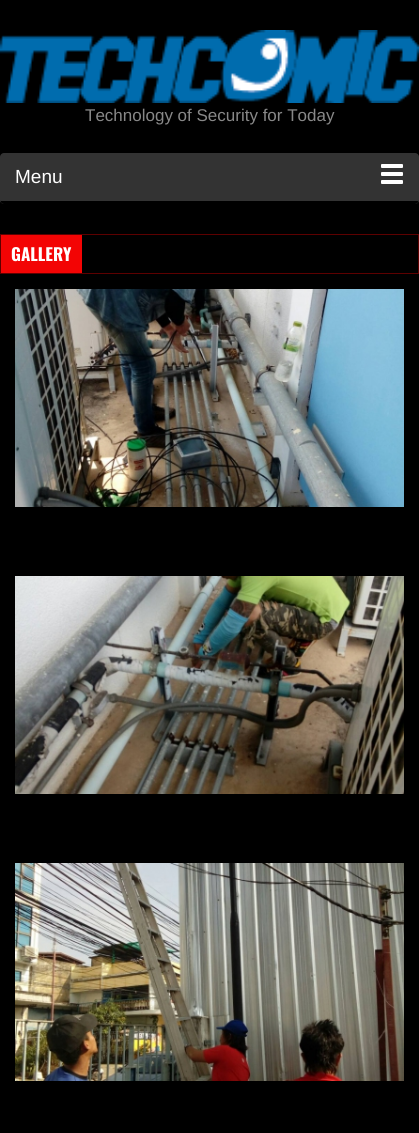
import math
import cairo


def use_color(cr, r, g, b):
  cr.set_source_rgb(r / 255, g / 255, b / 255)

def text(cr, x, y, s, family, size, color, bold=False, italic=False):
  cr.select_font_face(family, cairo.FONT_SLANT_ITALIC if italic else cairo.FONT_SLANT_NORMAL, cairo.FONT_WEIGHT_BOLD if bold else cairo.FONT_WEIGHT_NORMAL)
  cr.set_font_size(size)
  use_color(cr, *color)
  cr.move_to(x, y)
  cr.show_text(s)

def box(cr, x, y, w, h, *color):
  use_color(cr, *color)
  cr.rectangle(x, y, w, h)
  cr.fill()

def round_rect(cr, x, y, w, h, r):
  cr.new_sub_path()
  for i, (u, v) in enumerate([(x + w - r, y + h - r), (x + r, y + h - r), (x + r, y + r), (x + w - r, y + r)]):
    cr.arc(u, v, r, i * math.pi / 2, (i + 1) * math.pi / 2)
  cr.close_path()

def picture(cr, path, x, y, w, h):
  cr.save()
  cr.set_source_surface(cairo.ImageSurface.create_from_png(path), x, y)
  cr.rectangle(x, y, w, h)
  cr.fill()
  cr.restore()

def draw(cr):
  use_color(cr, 0, 0, 0)
  cr.paint()
  picture(cr, "img_01.png", 0, 30, 419, 73)
  use_color(cr, 51, 51, 51)
  round_rect(cr, 0, 153, 419, 51, 4)
  cr.fill()
  use_color(cr, 0, 0, 0)
  cr.new_path()
  cr.move_to(4, 204)
  cr.line_to(415, 204)
  cr.curve_to(416, 204, 418, 203, 418, 202)
  cr.line_to(418, 201)
  cr.line_to(415, 201)
  cr.line_to(4, 201)
  cr.line_to(1, 201)
  cr.line_to(1, 202)
  cr.curve_to(1, 203, 3, 204, 4, 204)
  cr.close_path()
  cr.fill()
  use_color(cr, 255, 255, 255)
  round_rect(cr, 381, 164, 22, 4, 1)
  cr.fill()
  round_rect(cr, 381, 172, 22, 4, 1)
  cr.fill()
  round_rect(cr, 381, 180, 22, 4, 1)
  cr.fill()
  cr.rectangle(0.5, 234.5, 418, 39)
  use_color(cr, 93, 0, 0)
  cr.set_line_width(1)
  cr.stroke()
  box(cr, 1, 235, 81, 38, 243, 4, 4)
  picture(cr, "img_02.png", 15, 289, 389, 218)
  picture(cr, "img_03.png", 15, 576, 389, 218)
  picture(cr, "img_04.png", 15, 863, 389, 218)
  text(cr, 85, 121, "Technology of Security for Today", "Liberation Sans", 17, (136, 136, 136))
  text(cr, 15, 183, "Menu", "Liberation Sans", 19, (255, 255, 255))
  text(cr, 11, 261, "GALLERY", "Oswald", 17, (255, 255, 255), bold=True)


surface = cairo.ImageSurface(cairo.FORMAT_RGB24, 419, 1133)
cr = cairo.Context(surface)
options = cairo.FontOptions()
options.set_hint_metrics(cairo.HINT_METRICS_OFF)
options.set_hint_style(cairo.HINT_STYLE_NONE)
cr.set_font_options(options)
cr.set_miter_limit(4)
draw(cr)
surface.write_to_png("out.png")
